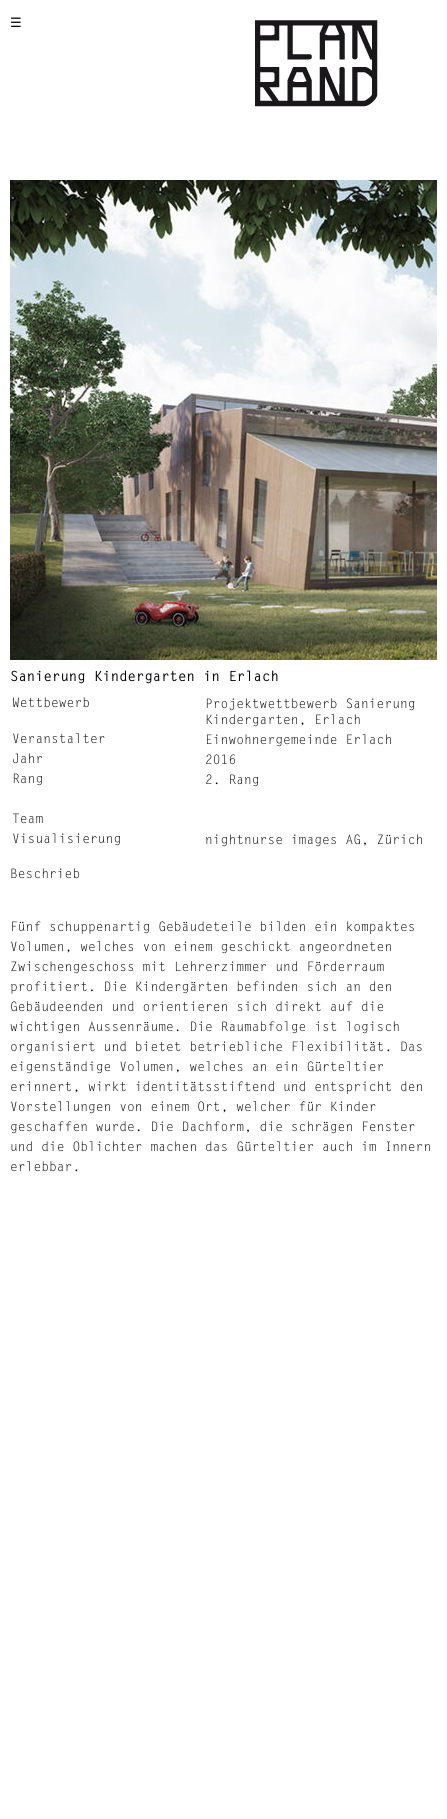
import math
import cairo


def use_color(cr, r, g, b):
  cr.set_source_rgb(r / 255, g / 255, b / 255)

def text(cr, x, y, s, family, size, color, bold=False, italic=False):
  cr.select_font_face(family, cairo.FONT_SLANT_ITALIC if italic else cairo.FONT_SLANT_NORMAL, cairo.FONT_WEIGHT_BOLD if bold else cairo.FONT_WEIGHT_NORMAL)
  cr.set_font_size(size)
  use_color(cr, *color)
  cr.move_to(x, y)
  cr.show_text(s)

def picture(cr, path, x, y, w, h):
  cr.save()
  cr.set_source_surface(cairo.ImageSurface.create_from_png(path), x, y)
  cr.rectangle(x, y, w, h)
  cr.fill()
  cr.restore()

def draw(cr):
  use_color(cr, 255, 255, 255)
  cr.paint()
  picture(cr, "img_01.png", 10, 180, 427, 480)
  picture(cr, "img_02.png", 255, 20, 123, 87)
  text(cr, 10, 27, "☰", "DejaVu Sans", 13, (0, 0, 0))
  text(cr, 10, 681, "Sanierung Kindergarten in Erlach", "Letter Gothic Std", 14, (0, 0, 0), bold=True)
  text(cr, 12, 707, "Wettbewerb", "Letter Gothic Std", 13, (0, 0, 0))
  text(cr, 205, 708, "Projektwettbewerb Sanierung", "Letter Gothic Std", 13, (0, 0, 0))
  text(cr, 205, 724, "Kindergarten, Erlach", "Letter Gothic Std", 13, (0, 0, 0))
  text(cr, 12, 743, "Veranstalter", "Letter Gothic Std", 13, (0, 0, 0))
  text(cr, 205, 744, "Einwohnergemeinde Erlach", "Letter Gothic Std", 13, (0, 0, 0))
  text(cr, 12, 763, "Jahr", "Letter Gothic Std", 13, (0, 0, 0))
  text(cr, 205, 764, "2016", "Letter Gothic Std", 13, (0, 0, 0))
  text(cr, 12, 783, "Rang", "Letter Gothic Std", 13, (0, 0, 0))
  text(cr, 205, 784, "2. Rang", "Letter Gothic Std", 13, (0, 0, 0))
  text(cr, 12, 823, "Team", "Letter Gothic Std", 13, (0, 0, 0))
  text(cr, 12, 843, "Visualisierung", "Letter Gothic Std", 13, (0, 0, 0))
  text(cr, 205, 844, "nightnurse images AG, Zürich", "Letter Gothic Std", 13, (0, 0, 0))
  text(cr, 10, 878, "Beschrieb", "Letter Gothic Std", 13, (0, 0, 0))
  text(cr, 10, 931, "Fünf schuppenartig Gebäudeteile bilden ein kompaktes", "Letter Gothic Std", 13, (0, 0, 0))
  text(cr, 10, 951, "Volumen, welches von einem geschickt angeordneten", "Letter Gothic Std", 13, (0, 0, 0))
  text(cr, 10, 971, "Zwischengeschoss mit Lehrerzimmer und Förderraum", "Letter Gothic Std", 13, (0, 0, 0))
  text(cr, 10, 991, "profitiert. Die Kindergärten befinden sich an den", "Letter Gothic Std", 13, (0, 0, 0))
  text(cr, 10, 1011, "Gebäudeenden und orientieren sich direkt auf die", "Letter Gothic Std", 13, (0, 0, 0))
  text(cr, 10, 1031, "wichtigen Aussenräume. Die Raumabfolge ist logisch", "Letter Gothic Std", 13, (0, 0, 0))
  text(cr, 10, 1051, "organisiert und bietet betriebliche Flexibilität. Das", "Letter Gothic Std", 13, (0, 0, 0))
  text(cr, 10, 1071, "eigenständige Volumen, welches an ein Gürteltier", "Letter Gothic Std", 13, (0, 0, 0))
  text(cr, 10, 1091, "erinnert, wirkt identitätsstiftend und entspricht den", "Letter Gothic Std", 13, (0, 0, 0))
  text(cr, 10, 1111, "Vorstellungen von einem Ort, welcher für Kinder", "Letter Gothic Std", 13, (0, 0, 0))
  text(cr, 10, 1131, "geschaffen wurde. Die Dachform, die schrägen Fenster", "Letter Gothic Std", 13, (0, 0, 0))
  text(cr, 10, 1151, "und die Oblichter machen das Gürteltier auch im Innern", "Letter Gothic Std", 13, (0, 0, 0))
  text(cr, 10, 1171, "erlebbar.", "Letter Gothic Std", 13, (0, 0, 0))


surface = cairo.ImageSurface(cairo.FORMAT_RGB24, 447, 1819)
cr = cairo.Context(surface)
options = cairo.FontOptions()
options.set_hint_metrics(cairo.HINT_METRICS_OFF)
options.set_hint_style(cairo.HINT_STYLE_NONE)
cr.set_font_options(options)
cr.set_miter_limit(4)
draw(cr)
surface.write_to_png("out.png")
